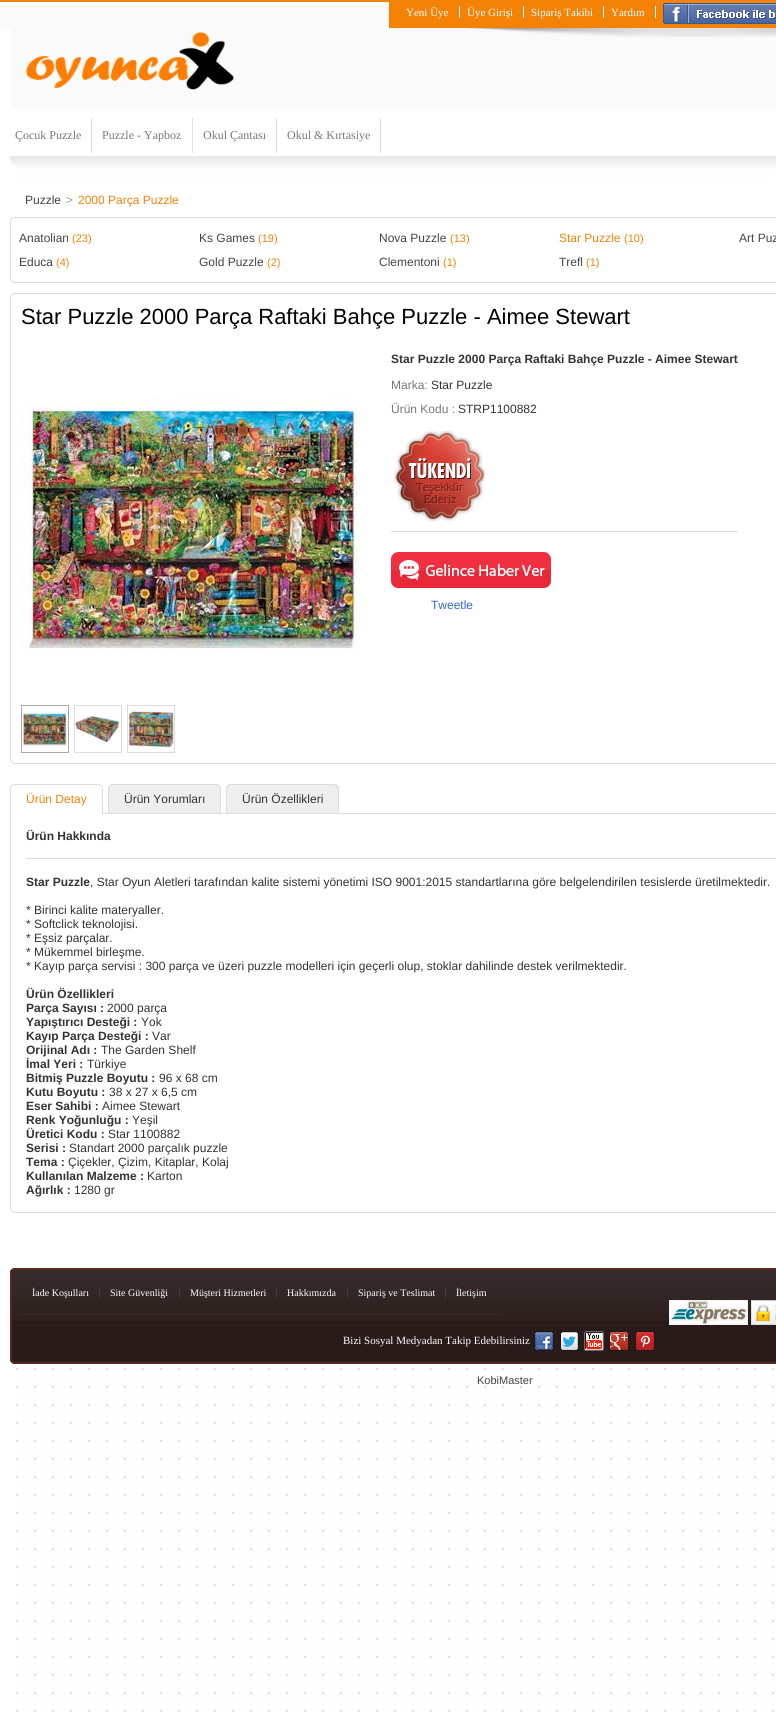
import math
import cairo


def use_color(cr, r, g, b):
  cr.set_source_rgb(r / 255, g / 255, b / 255)

def text(cr, x, y, s, family, size, color, bold=False, italic=False):
  cr.select_font_face(family, cairo.FONT_SLANT_ITALIC if italic else cairo.FONT_SLANT_NORMAL, cairo.FONT_WEIGHT_BOLD if bold else cairo.FONT_WEIGHT_NORMAL)
  cr.set_font_size(size)
  use_color(cr, *color)
  cr.move_to(x, y)
  cr.show_text(s)

def box(cr, x, y, w, h, *color):
  use_color(cr, *color)
  cr.rectangle(x, y, w, h)
  cr.fill()

def round_rect(cr, x, y, w, h, r):
  cr.new_sub_path()
  for i, (u, v) in enumerate([(x + w - r, y + h - r), (x + r, y + h - r), (x + r, y + r), (x + w - r, y + r)]):
    cr.arc(u, v, r, i * math.pi / 2, (i + 1) * math.pi / 2)
  cr.close_path()

def picture(cr, path, x, y, w, h):
  cr.save()
  cr.set_source_surface(cairo.ImageSurface.create_from_png(path), x, y)
  cr.rectangle(x, y, w, h)
  cr.fill()
  cr.restore()

def draw(cr):
  use_color(cr, 255, 255, 255)
  cr.paint()
  picture(cr, "img_01.png", 16, 167, 758, 1545)
  picture(cr, "img_02.png", 0, 0, 389, 28)
  box(cr, 10, 28, 766, 80, 250, 250, 250)
  picture(cr, "img_03.png", 464, 28, 312, 9)
  box(cr, 389, 0, 387, 28, 243, 130, 7)
  box(cr, 459, 6, 1, 12, 255, 255, 255)
  box(cr, 523, 6, 1, 12, 255, 255, 255)
  box(cr, 603, 6, 1, 12, 255, 255, 255)
  box(cr, 655, 6, 1, 12, 255, 255, 255)
  picture(cr, "img_04.png", 663, 3, 113, 21)
  picture(cr, "img_05.png", 26, 32, 208, 58)
  picture(cr, "img_06.png", 10, 156, 766, 12)
  box(cr, 91, 118, 1, 35, 224, 224, 224)
  box(cr, 192, 118, 1, 35, 224, 224, 224)
  box(cr, 276, 118, 1, 35, 224, 224, 224)
  box(cr, 380, 118, 1, 35, 224, 224, 224)
  box(cr, 16, 180, 758, 1084, 255, 255, 255)
  round_rect(cr, 10.5, 217.5, 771, 65, 4.5)
  use_color(cr, 221, 221, 221)
  cr.set_line_width(1)
  cr.stroke()
  round_rect(cr, 10.5, 293.5, 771, 470, 4.5)
  cr.stroke()
  picture(cr, "img_07.png", 21, 398, 337, 256)
  cr.rectangle(21.5, 705.5, 47, 47)
  use_color(cr, 170, 170, 170)
  cr.stroke()
  picture(cr, "img_08.png", 22, 713, 46, 33)
  cr.rectangle(74.5, 705.5, 47, 47)
  use_color(cr, 221, 221, 221)
  cr.stroke()
  picture(cr, "img_09.png", 75, 716, 46, 27)
  cr.rectangle(127.5, 705.5, 47, 47)
  cr.stroke()
  picture(cr, "img_10.png", 128, 710, 46, 38)
  picture(cr, "img_11.png", 394, 431, 91, 90)
  box(cr, 391, 531, 347, 1, 221, 221, 221)
  picture(cr, "img_12.png", 391, 552, 160, 36)
  cr.new_path()
  cr.move_to(10.5, 813.5)
  cr.line_to(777, 813.5)
  cr.curve_to(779.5, 813.5, 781.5, 815.5, 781.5, 818)
  cr.line_to(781.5, 1208)
  cr.curve_to(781.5, 1210.5, 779.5, 1212.5, 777, 1212.5)
  cr.line_to(15, 1212.5)
  cr.curve_to(12.5, 1212.5, 10.5, 1210.5, 10.5, 1208)
  cr.close_path()
  cr.stroke()
  use_color(cr, 255, 255, 255)
  cr.new_path()
  cr.move_to(15, 784)
  cr.line_to(98, 784)
  cr.curve_to(101, 784, 103, 786, 103, 789)
  cr.line_to(103, 814)
  cr.line_to(10, 814)
  cr.line_to(10, 789)
  cr.curve_to(10, 786, 12, 784, 15, 784)
  cr.close_path()
  cr.fill()
  use_color(cr, 221, 221, 221)
  cr.set_fill_rule(cairo.FILL_RULE_EVEN_ODD)
  cr.new_path()
  cr.move_to(15, 784)
  cr.line_to(98, 784)
  cr.curve_to(101, 784, 103, 786, 103, 789)
  cr.line_to(103, 814)
  cr.line_to(10, 814)
  cr.line_to(10, 789)
  cr.curve_to(10, 786, 12, 784, 15, 784)
  cr.close_path()
  cr.move_to(15, 785)
  cr.line_to(98, 785)
  cr.curve_to(100, 785, 102, 787, 102, 789)
  cr.line_to(102, 814)
  cr.line_to(11, 814)
  cr.line_to(11, 789)
  cr.curve_to(11, 787, 13, 785, 15, 785)
  cr.close_path()
  cr.fill()
  use_color(cr, 238, 238, 238)
  cr.new_path()
  cr.move_to(113, 784)
  cr.line_to(216, 784)
  cr.curve_to(219, 784, 221, 786, 221, 789)
  cr.line_to(221, 813)
  cr.line_to(108, 813)
  cr.line_to(108, 789)
  cr.curve_to(108, 786, 110, 784, 113, 784)
  cr.close_path()
  cr.fill()
  use_color(cr, 221, 221, 221)
  cr.new_path()
  cr.move_to(113, 784)
  cr.line_to(216, 784)
  cr.curve_to(219, 784, 221, 786, 221, 789)
  cr.line_to(221, 813)
  cr.line_to(108, 813)
  cr.line_to(108, 789)
  cr.curve_to(108, 786, 110, 784, 113, 784)
  cr.close_path()
  cr.move_to(113, 785)
  cr.line_to(216, 785)
  cr.curve_to(218, 785, 220, 787, 220, 789)
  cr.line_to(220, 813)
  cr.line_to(109, 813)
  cr.line_to(109, 789)
  cr.curve_to(109, 787, 111, 785, 113, 785)
  cr.close_path()
  cr.fill()
  use_color(cr, 238, 238, 238)
  cr.new_path()
  cr.move_to(231, 784)
  cr.line_to(334, 784)
  cr.curve_to(337, 784, 339, 786, 339, 789)
  cr.line_to(339, 813)
  cr.line_to(226, 813)
  cr.line_to(226, 789)
  cr.curve_to(226, 786, 228, 784, 231, 784)
  cr.close_path()
  cr.fill()
  use_color(cr, 221, 221, 221)
  cr.new_path()
  cr.move_to(231, 784)
  cr.line_to(334, 784)
  cr.curve_to(337, 784, 339, 786, 339, 789)
  cr.line_to(339, 813)
  cr.line_to(226, 813)
  cr.line_to(226, 789)
  cr.curve_to(226, 786, 228, 784, 231, 784)
  cr.close_path()
  cr.move_to(231, 785)
  cr.line_to(334, 785)
  cr.curve_to(336, 785, 338, 787, 338, 789)
  cr.line_to(338, 813)
  cr.line_to(227, 813)
  cr.line_to(227, 789)
  cr.curve_to(227, 787, 229, 785, 231, 785)
  cr.close_path()
  cr.fill()
  box(cr, 26, 858, 750, 1, 221, 221, 221)
  use_color(cr, 41, 27, 26)
  round_rect(cr, 10, 1268, 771, 96, 5)
  cr.fill()
  picture(cr, "img_13.png", 10, 1270, 766, 51)
  round_rect(cr, 11, 1269, 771, 94, 4)
  use_color(cr, 89, 40, 26)
  cr.set_line_width(2)
  cr.stroke()
  box(cr, 17, 1314, 485, 1, 56, 43, 42)
  box(cr, 99, 1287, 1, 11, 71, 60, 60)
  box(cr, 179, 1287, 1, 11, 71, 60, 60)
  box(cr, 276, 1287, 1, 11, 71, 60, 60)
  box(cr, 347, 1287, 1, 11, 71, 60, 60)
  box(cr, 445, 1287, 1, 11, 71, 60, 60)
  picture(cr, "img_14.png", 669, 1300, 79, 25)
  picture(cr, "img_15.png", 751, 1300, 25, 25)
  picture(cr, "img_16.png", 534, 1331, 20, 20)
  picture(cr, "img_17.png", 560, 1331, 19, 20)
  picture(cr, "img_18.png", 584, 1331, 20, 20)
  picture(cr, "img_19.png", 609, 1331, 20, 20)
  picture(cr, "img_20.png", 635, 1331, 20, 20)
  text(cr, 406, 16, "Yeni Üye", "Liberation Serif", 11, (255, 255, 255))
  text(cr, 467, 16, "Üye Girişi", "Liberation Serif", 11, (255, 255, 255))
  text(cr, 531, 16, "Sipariş Takibi", "Liberation Serif", 11, (255, 255, 255))
  text(cr, 611, 16, "Yardım", "Liberation Serif", 11, (255, 255, 255))
  text(cr, 15, 139, "Çocuk Puzzle", "Liberation Serif", 12, (119, 119, 119))
  text(cr, 102, 139, "Puzzle - Yapboz", "Liberation Serif", 12, (119, 119, 119))
  text(cr, 203, 139, "Okul Çantası", "Liberation Serif", 12, (119, 119, 119))
  text(cr, 287, 139, "Okul & Kırtasiye", "Liberation Serif", 12, (119, 119, 119))
  text(cr, 25, 204, "Puzzle", "Liberation Sans", 12, (68, 68, 68))
  text(cr, 66, 204, ">", "Liberation Sans", 12, (153, 153, 153))
  text(cr, 78, 204, "2000 Parça Puzzle", "Liberation Sans", 12, (243, 130, 7))
  text(cr, 19, 242, "Anatolian", "Liberation Sans", 12, (68, 68, 68))
  text(cr, 72, 242, "(23)", "Liberation Sans", 11, (243, 130, 7))
  text(cr, 199, 242, "Ks Games", "Liberation Sans", 12, (68, 68, 68))
  text(cr, 258, 242, "(19)", "Liberation Sans", 11, (243, 130, 7))
  text(cr, 379, 242, "Nova Puzzle", "Liberation Sans", 12, (68, 68, 68))
  text(cr, 450, 242, "(13)", "Liberation Sans", 11, (243, 130, 7))
  text(cr, 559, 242, "Star Puzzle", "Liberation Sans", 12, (243, 130, 7))
  text(cr, 624, 242, "(10)", "Liberation Sans", 11, (243, 130, 7))
  text(cr, 739, 242, "Art Puz", "Liberation Sans", 12, (68, 68, 68))
  text(cr, 19, 266, "Educa", "Liberation Sans", 12, (68, 68, 68))
  text(cr, 56, 266, "(4)", "Liberation Sans", 11, (243, 130, 7))
  text(cr, 199, 266, "Gold Puzzle", "Liberation Sans", 12, (68, 68, 68))
  text(cr, 267, 266, "(2)", "Liberation Sans", 11, (243, 130, 7))
  text(cr, 379, 266, "Clementoni", "Liberation Sans", 12, (68, 68, 68))
  text(cr, 443, 266, "(1)", "Liberation Sans", 11, (243, 130, 7))
  text(cr, 559, 266, "Trefl", "Liberation Sans", 12, (68, 68, 68))
  text(cr, 586, 266, "(1)", "Liberation Sans", 11, (243, 130, 7))
  text(cr, 21, 324, "Star Puzzle 2000 Parça Raftaki Bahçe Puzzle - Aimee Stewart", "Liberation Sans", 22, (0, 0, 0))
  text(cr, 391, 363, "Star Puzzle 2000 Parça Raftaki Bahçe Puzzle - Aimee Stewart", "Liberation Sans", 12, (51, 51, 51), bold=True)
  text(cr, 391, 389, "Marka:", "Liberation Sans", 12, (119, 119, 119))
  text(cr, 431, 389, "Star Puzzle", "Liberation Sans", 12, (51, 51, 51))
  text(cr, 391, 413, "Ürün Kodu :", "Liberation Sans", 12, (119, 119, 119))
  text(cr, 458, 413, "STRP1100882", "Liberation Sans", 12, (51, 51, 51))
  text(cr, 431, 609, "Tweetle", "Liberation Sans", 12, (51, 102, 204))
  text(cr, 26, 803, "Ürün Detay", "Liberation Sans", 12, (243, 130, 7))
  text(cr, 124, 803, "Ürün Yorumları", "Liberation Sans", 12, (51, 51, 51))
  text(cr, 242, 803, "Ürün Özellikleri", "Liberation Sans", 12, (51, 51, 51))
  text(cr, 26, 840, "Ürün Hakkında", "Liberation Sans", 12, (51, 51, 51), bold=True)
  text(cr, 26, 886, "Star Puzzle", "Liberation Sans", 12, (51, 51, 51), bold=True)
  text(cr, 90, 886, ", Star Oyun Aletleri tarafından kalite sistemi yönetimi ISO 9001:2015 standartlarına göre belgelendirilen tesislerde üretilmektedir.", "Liberation Sans", 12, (51, 51, 51))
  text(cr, 26, 914, "* Birinci kalite materyaller.", "Liberation Sans", 12, (51, 51, 51))
  text(cr, 26, 928, "* Softclick teknolojisi.", "Liberation Sans", 12, (51, 51, 51))
  text(cr, 26, 942, "* Eşsiz parçalar.", "Liberation Sans", 12, (51, 51, 51))
  text(cr, 26, 956, "* Mükemmel birleşme.", "Liberation Sans", 12, (51, 51, 51))
  text(cr, 26, 970, "* Kayıp parça servisi : 300 parça ve üzeri puzzle modelleri için geçerli olup, stoklar dahilinde destek verilmektedir.", "Liberation Sans", 12, (51, 51, 51))
  text(cr, 26, 998, "Ürün Özellikleri", "Liberation Sans", 12, (51, 51, 51), bold=True)
  text(cr, 26, 1012, "Parça Sayısı :", "Liberation Sans", 12, (51, 51, 51), bold=True)
  text(cr, 107, 1012, "2000 parça", "Liberation Sans", 12, (51, 51, 51))
  text(cr, 26, 1026, "Yapıştırıcı Desteği :", "Liberation Sans", 12, (51, 51, 51), bold=True)
  text(cr, 141, 1026, "Yok", "Liberation Sans", 12, (51, 51, 51))
  text(cr, 26, 1040, "Kayıp Parça Desteği :", "Liberation Sans", 12, (51, 51, 51), bold=True)
  text(cr, 152, 1040, "Var", "Liberation Sans", 12, (51, 51, 51))
  text(cr, 26, 1054, "Orijinal Adı :", "Liberation Sans", 12, (51, 51, 51), bold=True)
  text(cr, 101, 1054, "The Garden Shelf", "Liberation Sans", 12, (51, 51, 51))
  text(cr, 26, 1068, "İmal Yeri :", "Liberation Sans", 12, (51, 51, 51), bold=True)
  text(cr, 87, 1068, "Türkiye", "Liberation Sans", 12, (51, 51, 51))
  text(cr, 26, 1082, "Bitmiş Puzzle Boyutu :", "Liberation Sans", 12, (51, 51, 51), bold=True)
  text(cr, 159, 1082, "96 x 68 cm", "Liberation Sans", 12, (51, 51, 51))
  text(cr, 26, 1096, "Kutu Boyutu :", "Liberation Sans", 12, (51, 51, 51), bold=True)
  text(cr, 109, 1096, "38 x 27 x 6,5 cm", "Liberation Sans", 12, (51, 51, 51))
  text(cr, 26, 1110, "Eser Sahibi :", "Liberation Sans", 12, (51, 51, 51), bold=True)
  text(cr, 102, 1110, "Aimee Stewart", "Liberation Sans", 12, (51, 51, 51))
  text(cr, 26, 1124, "Renk Yoğunluğu :", "Liberation Sans", 12, (51, 51, 51), bold=True)
  text(cr, 132, 1124, "Yeşil", "Liberation Sans", 12, (51, 51, 51))
  text(cr, 26, 1138, "Üretici Kodu :", "Liberation Sans", 12, (51, 51, 51), bold=True)
  text(cr, 108, 1138, "Star 1100882", "Liberation Sans", 12, (51, 51, 51))
  text(cr, 26, 1152, "Serisi :", "Liberation Sans", 12, (51, 51, 51), bold=True)
  text(cr, 69, 1152, "Standart 2000 parçalık puzzle", "Liberation Sans", 12, (51, 51, 51))
  text(cr, 26, 1166, "Tema :", "Liberation Sans", 12, (51, 51, 51), bold=True)
  text(cr, 68, 1166, "Çiçekler, Çizim, Kitaplar, Kolaj", "Liberation Sans", 12, (51, 51, 51))
  text(cr, 26, 1180, "Kullanılan Malzeme :", "Liberation Sans", 12, (51, 51, 51), bold=True)
  text(cr, 147, 1180, "Karton", "Liberation Sans", 12, (51, 51, 51))
  text(cr, 26, 1194, "Ağırlık :", "Liberation Sans", 12, (51, 51, 51), bold=True)
  text(cr, 74, 1194, "1280 gr", "Liberation Sans", 12, (51, 51, 51))
  text(cr, 32, 1296, "İade Koşulları", "Liberation Serif", 10, (255, 255, 255))
  text(cr, 110, 1296, "Site Güvenliği", "Liberation Serif", 10, (255, 255, 255))
  text(cr, 190, 1296, "Müşteri Hizmetleri", "Liberation Serif", 10, (255, 255, 255))
  text(cr, 287, 1296, "Hakkımızda", "Liberation Serif", 10, (255, 255, 255))
  text(cr, 358, 1296, "Sipariş ve Teslimat", "Liberation Serif", 10, (255, 255, 255))
  text(cr, 456, 1296, "İletişim", "Liberation Serif", 10, (255, 255, 255))
  text(cr, 343, 1344, "Bizi Sosyal Medyadan Takip Edebilirsiniz", "Liberation Serif", 11, (255, 255, 255))
  text(cr, 477, 1384, "KobiMaster", "Liberation Sans", 11, (68, 68, 68))


surface = cairo.ImageSurface(cairo.FORMAT_RGB24, 776, 1722)
cr = cairo.Context(surface)
options = cairo.FontOptions()
options.set_hint_metrics(cairo.HINT_METRICS_OFF)
options.set_hint_style(cairo.HINT_STYLE_NONE)
cr.set_font_options(options)
cr.set_miter_limit(4)
draw(cr)
surface.write_to_png("out.png")
